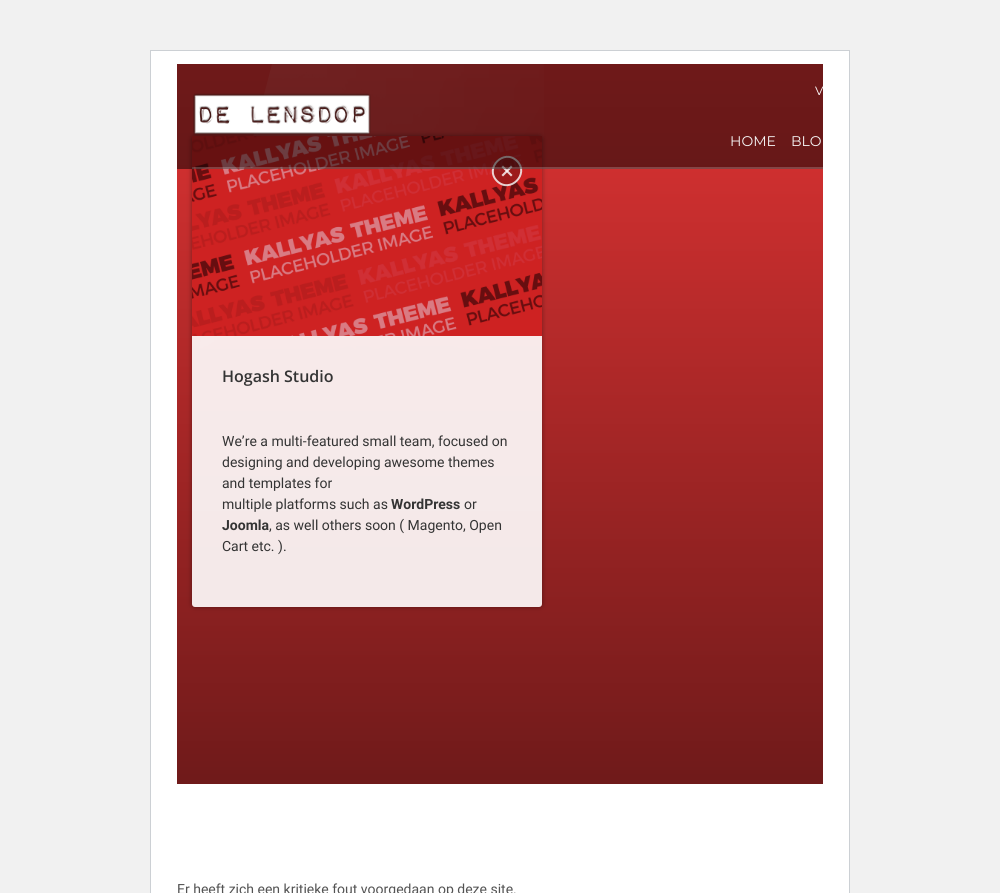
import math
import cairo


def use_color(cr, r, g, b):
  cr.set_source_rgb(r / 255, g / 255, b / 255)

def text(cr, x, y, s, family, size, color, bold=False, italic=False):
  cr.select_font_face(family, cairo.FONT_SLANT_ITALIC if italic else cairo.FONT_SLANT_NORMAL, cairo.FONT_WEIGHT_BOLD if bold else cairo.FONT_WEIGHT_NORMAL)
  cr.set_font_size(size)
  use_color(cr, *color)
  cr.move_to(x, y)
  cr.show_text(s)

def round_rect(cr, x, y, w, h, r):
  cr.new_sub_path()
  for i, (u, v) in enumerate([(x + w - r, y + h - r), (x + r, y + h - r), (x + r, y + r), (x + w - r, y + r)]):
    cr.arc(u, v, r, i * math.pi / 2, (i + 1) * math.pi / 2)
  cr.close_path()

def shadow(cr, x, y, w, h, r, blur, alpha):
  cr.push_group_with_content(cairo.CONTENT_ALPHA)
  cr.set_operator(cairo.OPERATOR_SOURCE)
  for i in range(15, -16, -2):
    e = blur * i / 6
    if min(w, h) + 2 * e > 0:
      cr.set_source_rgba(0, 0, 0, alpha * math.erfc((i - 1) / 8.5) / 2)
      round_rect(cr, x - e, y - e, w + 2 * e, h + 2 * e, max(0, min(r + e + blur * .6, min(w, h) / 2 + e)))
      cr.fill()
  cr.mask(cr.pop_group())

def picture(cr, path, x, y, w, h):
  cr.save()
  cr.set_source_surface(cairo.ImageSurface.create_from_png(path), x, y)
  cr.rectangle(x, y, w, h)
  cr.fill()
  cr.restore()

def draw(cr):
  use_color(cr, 241, 241, 241)
  cr.paint()
  use_color(cr, 255, 255, 255)
  cr.rectangle(150.5, 50.5, 699, 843)
  cr.fill_preserve()
  use_color(cr, 204, 208, 212)
  cr.set_line_width(1)
  cr.stroke()
  gradient = cairo.LinearGradient(500, 64, 500, 784)
  gradient.add_color_stop_rgba(0, 0.871, 0.2, 0.2, 1)
  gradient.add_color_stop_rgba(1, 0.435, 0.102, 0.102, 1)
  cr.set_source(gradient)
  cr.rectangle(177, 64, 646, 720)
  cr.fill()
  picture(cr, "img_02.png", 199, 64, 345, 285)
  cr.save()
  cr.set_fill_rule(cairo.FILL_RULE_EVEN_ODD)
  cr.new_path()
  cr.move_to(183, 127)
  cr.line_to(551, 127)
  cr.line_to(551, 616)
  cr.line_to(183, 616)
  cr.close_path()
  cr.move_to(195, 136)
  cr.line_to(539, 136)
  cr.curve_to(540.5, 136, 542, 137.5, 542, 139)
  cr.line_to(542, 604)
  cr.curve_to(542, 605.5, 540.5, 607, 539, 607)
  cr.line_to(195, 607)
  cr.curve_to(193.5, 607, 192, 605.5, 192, 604)
  cr.line_to(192, 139)
  cr.curve_to(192, 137.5, 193.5, 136, 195, 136)
  cr.close_path()
  cr.clip()
  use_color(cr, 0, 0, 0)
  shadow(cr, 192, 136, 350, 471, 3, 2.5, 0.4)
  cr.restore()
  cr.set_source_rgba(1, 1, 1, 0.9)
  round_rect(cr, 192, 136, 350, 471, 3)
  cr.fill()
  picture(cr, "img_03.png", 192, 136, 350, 200)
  cr.set_source_rgba(0, 0, 0, 0.24)
  cr.new_path()
  cr.move_to(517.5, 160.5)
  cr.curve_to(523.5, 166.5, 523.5, 175.5, 517.5, 181.5)
  cr.curve_to(511.5, 187.5, 502.5, 187.5, 496.5, 181.5)
  cr.curve_to(490.5, 175.5, 490.5, 166.5, 496.5, 160.5)
  cr.curve_to(502.5, 154.5, 511.5, 154.5, 517.5, 160.5)
  cr.close_path()
  cr.fill()
  cr.new_path()
  cr.move_to(517, 161)
  cr.curve_to(530, 174, 510, 194, 497, 181)
  cr.curve_to(484, 168, 504, 148, 517, 161)
  cr.close_path()
  cr.set_source_rgba(1, 1, 1, 0.8)
  cr.set_line_width(2)
  cr.stroke()
  cr.new_path()
  cr.move_to(511, 165.5)
  cr.line_to(512.5, 167)
  cr.line_to(503, 176.5)
  cr.line_to(501.5, 175)
  cr.close_path()
  cr.fill()
  cr.new_path()
  cr.move_to(512.5, 175)
  cr.line_to(511, 176.5)
  cr.line_to(501.5, 167)
  cr.line_to(503, 165.5)
  cr.close_path()
  cr.fill()
  cr.set_source_rgba(0, 0, 0, 0.5)
  cr.rectangle(177, 64, 646, 105)
  cr.fill()
  picture(cr, "img_01.png", 193, 93, 178, 42)
  cr.set_source_rgba(1, 1, 1, 0.2)
  cr.rectangle(192, 167, 631, 2)
  cr.fill()
  text(cr, 815, 95, "V", "Montserrat", 12, (255, 255, 255))
  text(cr, 730, 146, "HOME", "Montserrat", 14, (245, 245, 245))
  text(cr, 791, 146, "BLO", "Montserrat", 14, (245, 245, 245))
  text(cr, 222, 382, "Hogash Studio", "Open Sans SemiBold", 16, (52, 52, 52))
  text(cr, 222, 446, "We’re a multi-featured small team, focused on", "Roboto", 14, (52, 52, 52))
  text(cr, 222, 467, "designing and developing awesome themes", "Roboto", 14, (52, 52, 52))
  text(cr, 222, 488, "and templates for", "Roboto", 14, (52, 52, 52))
  text(cr, 222, 509, "multiple platforms such as", "Roboto", 14, (52, 52, 52))
  text(cr, 391, 509, "WordPress", "Roboto", 14, (52, 52, 52), bold=True)
  text(cr, 464, 509, "or", "Roboto", 14, (52, 52, 52))
  text(cr, 222, 530, "Joomla", "Roboto", 14, (52, 52, 52), bold=True)
  text(cr, 269, 530, ", as well others soon ( Magento, Open", "Roboto", 14, (52, 52, 52))
  text(cr, 222, 551, "Cart etc. ).", "Roboto", 14, (52, 52, 52))
  text(cr, 177, 894, "Er heeft zich een kritieke fout voorgedaan op deze site.", "Roboto", 14, (83, 83, 83))


surface = cairo.ImageSurface(cairo.FORMAT_RGB24, 1000, 893)
cr = cairo.Context(surface)
options = cairo.FontOptions()
options.set_hint_metrics(cairo.HINT_METRICS_OFF)
options.set_hint_style(cairo.HINT_STYLE_NONE)
cr.set_font_options(options)
cr.set_miter_limit(4)
draw(cr)
surface.write_to_png("out.png")
